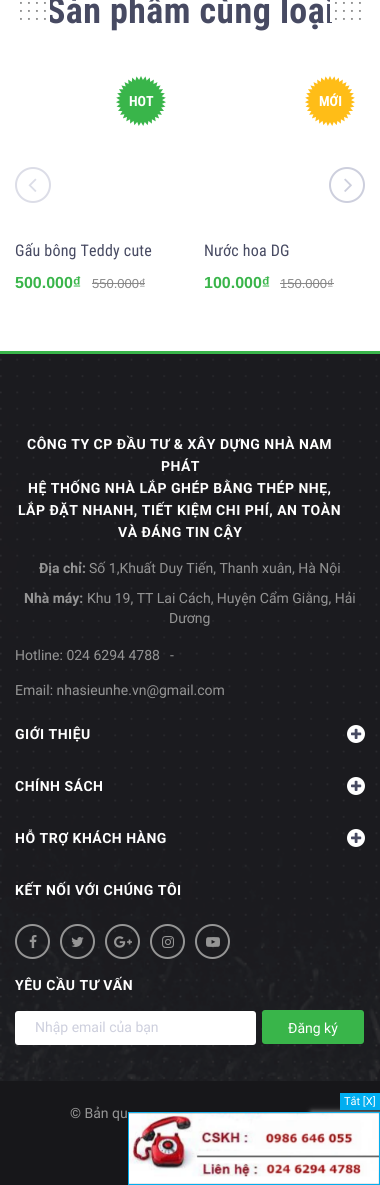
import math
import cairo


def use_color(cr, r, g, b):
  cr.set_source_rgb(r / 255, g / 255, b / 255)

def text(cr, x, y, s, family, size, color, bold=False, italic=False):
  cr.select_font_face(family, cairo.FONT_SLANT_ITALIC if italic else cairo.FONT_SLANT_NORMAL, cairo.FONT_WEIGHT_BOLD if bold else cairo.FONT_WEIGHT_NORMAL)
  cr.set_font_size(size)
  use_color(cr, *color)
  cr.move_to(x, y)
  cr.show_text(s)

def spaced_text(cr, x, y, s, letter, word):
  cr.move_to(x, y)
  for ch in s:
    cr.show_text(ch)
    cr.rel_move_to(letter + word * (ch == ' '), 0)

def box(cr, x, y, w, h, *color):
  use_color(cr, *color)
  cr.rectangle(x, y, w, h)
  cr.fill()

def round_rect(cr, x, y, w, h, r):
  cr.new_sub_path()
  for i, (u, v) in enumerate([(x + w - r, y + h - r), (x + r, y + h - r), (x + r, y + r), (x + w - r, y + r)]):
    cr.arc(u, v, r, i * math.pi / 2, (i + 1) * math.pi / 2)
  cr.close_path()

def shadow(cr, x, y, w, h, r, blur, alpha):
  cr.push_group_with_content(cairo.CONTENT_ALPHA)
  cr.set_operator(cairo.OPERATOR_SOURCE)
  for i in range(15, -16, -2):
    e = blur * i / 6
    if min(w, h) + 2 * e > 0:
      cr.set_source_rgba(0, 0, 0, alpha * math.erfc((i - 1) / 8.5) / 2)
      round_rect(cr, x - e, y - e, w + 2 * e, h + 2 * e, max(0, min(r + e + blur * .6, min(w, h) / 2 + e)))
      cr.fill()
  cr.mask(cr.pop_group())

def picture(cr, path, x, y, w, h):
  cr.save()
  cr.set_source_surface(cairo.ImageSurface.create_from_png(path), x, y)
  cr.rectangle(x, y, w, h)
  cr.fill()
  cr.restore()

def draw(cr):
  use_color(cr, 255, 255, 255)
  cr.paint()
  picture(cr, "img_03.png", 116, 76, 50, 50)
  box(cr, 92, 283, 53, 1, 136, 136, 136)
  picture(cr, "img_04.png", 305, 76, 50, 50)
  box(cr, 280, 283, 54, 1, 136, 136, 136)
  cr.arc(33, 185, 17, 0, 2 * math.pi)
  use_color(cr, 220, 221, 231)
  cr.stroke()
  picture(cr, "img_05.png", 28, 178, 9, 14)
  cr.arc(347, 185, 17, 0, 2 * math.pi)
  use_color(cr, 205, 207, 221)
  cr.stroke()
  picture(cr, "img_06.png", 344, 178, 8, 14)
  picture(cr, "img_07.png", 0, 354, 380, 727)
  box(cr, 0, 351, 380, 3, 57, 181, 74)
  use_color(cr, 255, 255, 255)
  cr.arc(356, 734, 9, 0, 2 * math.pi)
  cr.fill()
  picture(cr, "img_08.png", 351, 728, 11, 11)
  cr.arc(356, 786, 9, 0, 2 * math.pi)
  cr.fill()
  picture(cr, "img_08.png", 351, 780, 11, 11)
  cr.arc(356, 838, 9, 0, 2 * math.pi)
  cr.fill()
  picture(cr, "img_08.png", 351, 832, 11, 11)
  cr.arc(32.5, 941.5, 16.5, 0, 2 * math.pi)
  use_color(cr, 149, 149, 149)
  cr.stroke()
  picture(cr, "img_09.png", 29, 935, 8, 13)
  cr.arc(77.5, 941.5, 16.5, 0, 2 * math.pi)
  cr.stroke()
  picture(cr, "img_10.png", 71, 937, 13, 10)
  cr.arc(122.5, 941.5, 16.5, 0, 2 * math.pi)
  cr.stroke()
  picture(cr, "img_11.png", 114, 936, 18, 12)
  cr.arc(167.5, 941.5, 16.5, 0, 2 * math.pi)
  cr.stroke()
  picture(cr, "img_12.png", 162, 936, 12, 12)
  cr.arc(212.5, 941.5, 16.5, 0, 2 * math.pi)
  cr.stroke()
  picture(cr, "img_13.png", 206, 937, 14, 10)
  use_color(cr, 255, 255, 255)
  round_rect(cr, 15, 1011, 241, 34, 3)
  cr.fill()
  use_color(cr, 57, 181, 74)
  round_rect(cr, 262, 1010, 102, 34, 3)
  cr.fill()
  box(cr, 0, 1081, 380, 104, 23, 23, 26)
  use_color(cr, 128, 128, 128)
  shadow(cr, 310, 1111, 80, 60, 2, 2.5, 1)
  box(cr, 340, 1093, 40, 17, 1, 174, 240)
  cr.rectangle(128.5, 1112.5, 251, 72)
  cr.set_line_width(1)
  cr.stroke()
  picture(cr, "img_14.png", 129, 1112, 250, 72)
  cr.select_font_face("Roboto Condensed", cairo.FONT_SLANT_NORMAL, cairo.FONT_WEIGHT_BOLD)
  cr.set_font_size(36)
  use_color(cr, 71, 74, 98)
  spaced_text(cr, 46, 23, "Sản phẩm cùng loại", 0.4, 0)
  picture(cr, "img_01.png", 20, 0, 30, 22)
  picture(cr, "img_02.png", 330, 0, 31, 22)
  text(cr, 129, 106, "HOT", "Roboto Condensed", 14, (255, 255, 255), bold=True)
  cr.select_font_face("Roboto Condensed")
  cr.set_font_size(16)
  use_color(cr, 71, 74, 98)
  spaced_text(cr, 15, 256, "Gấu bông Teddy cute", 0.2, 0)
  text(cr, 15, 288, "500.000₫", "Liberation Sans", 16, (57, 181, 74), bold=True)
  text(cr, 92, 288, "550.000₫", "Liberation Sans", 13, (136, 136, 136))
  text(cr, 319, 106, "MỚI", "Roboto Condensed", 14, (255, 255, 255), bold=True)
  cr.select_font_face("Roboto Condensed")
  cr.set_font_size(16)
  use_color(cr, 71, 74, 98)
  spaced_text(cr, 204, 256, "Nước hoa DG", 0.2, 0)
  text(cr, 204, 288, "100.000₫", "Liberation Sans", 16, (57, 181, 74), bold=True)
  text(cr, 280, 288, "150.000₫", "Liberation Sans", 13, (136, 136, 136))
  cr.select_font_face("Roboto", cairo.FONT_SLANT_NORMAL, cairo.FONT_WEIGHT_BOLD)
  cr.set_font_size(14)
  use_color(cr, 255, 255, 255)
  spaced_text(cr, 27, 449, "CÔNG TY CP ĐẦU TƯ & XÂY DỰNG NHÀ NAM", 0.5, 0)
  spaced_text(cr, 161, 471, "PHÁT", 0.5, 0)
  spaced_text(cr, 28, 493, "HỆ THỐNG NHÀ LẮP GHÉP BẰNG THÉP NHẸ,", 0.5, 0)
  spaced_text(cr, 18, 515, "LẮP ĐẶT NHANH, TIẾT KIỆM CHI PHÍ, AN TOÀN", 0.5, 0)
  spaced_text(cr, 118, 537, "VÀ ĐÁNG TIN CẬY", 0.5, 0)
  text(cr, 39, 573, "Địa chỉ:", "Roboto", 14, (149, 149, 149), bold=True)
  text(cr, 89, 573, "Số 1,Khuất Duy Tiến, Thanh xuân, Hà Nội", "Roboto", 14, (149, 149, 149))
  text(cr, 24, 603, "Nhà máy:", "Roboto", 14, (149, 149, 149), bold=True)
  text(cr, 87, 603, "Khu 19, TT Lai Cách, Huyện Cẩm Giằng, Hải", "Roboto", 14, (149, 149, 149))
  text(cr, 169, 623, "Dương", "Roboto", 14, (149, 149, 149))
  text(cr, 15, 660, "Hotline: 024 6294 4788", "Roboto", 14, (149, 149, 149))
  text(cr, 170, 660, "-", "Roboto", 14, (149, 149, 149))
  text(cr, 15, 695, "Email: nhasieunhe.vn@gmail.com", "Roboto", 14, (149, 149, 149))
  cr.select_font_face("Roboto", cairo.FONT_SLANT_NORMAL, cairo.FONT_WEIGHT_BOLD)
  use_color(cr, 255, 255, 255)
  spaced_text(cr, 15, 739, "GIỚI THIỆU", 0.5, 0)
  spaced_text(cr, 15, 791, "CHÍNH SÁCH", 0.5, 0)
  spaced_text(cr, 15, 843, "HỖ TRỢ KHÁCH HÀNG", 0.5, 0)
  spaced_text(cr, 15, 895, "KẾT NỐI VỚI CHÚNG TÔI", 0.5, 0)
  spaced_text(cr, 15, 990, "YÊU CẦU TƯ VẤN", 0.5, 0)
  text(cr, 35, 1032, "Nhập email của bạn", "Roboto", 14, (205, 207, 221))
  text(cr, 288, 1033, "Đăng ký", "Roboto", 14, (255, 255, 255))
  text(cr, 70, 1118, "© Bản qu", "Roboto", 14, (149, 149, 149))
  text(cr, 344, 1105, "Tắt [X]", "Roboto", 11, (255, 255, 255))


surface = cairo.ImageSurface(cairo.FORMAT_RGB24, 380, 1185)
cr = cairo.Context(surface)
options = cairo.FontOptions()
options.set_hint_metrics(cairo.HINT_METRICS_OFF)
options.set_hint_style(cairo.HINT_STYLE_NONE)
cr.set_font_options(options)
cr.set_miter_limit(4)
draw(cr)
surface.write_to_png("out.png")
